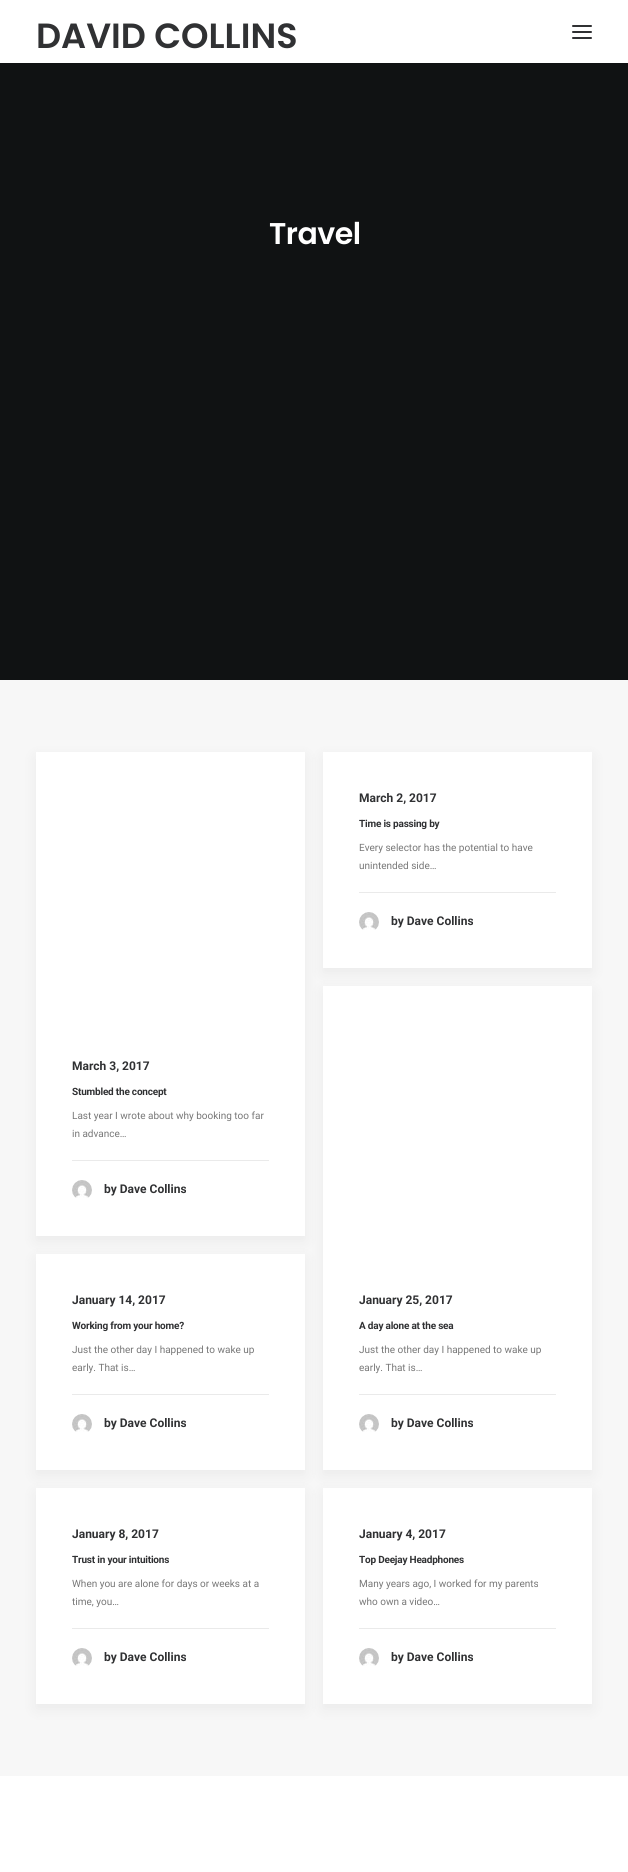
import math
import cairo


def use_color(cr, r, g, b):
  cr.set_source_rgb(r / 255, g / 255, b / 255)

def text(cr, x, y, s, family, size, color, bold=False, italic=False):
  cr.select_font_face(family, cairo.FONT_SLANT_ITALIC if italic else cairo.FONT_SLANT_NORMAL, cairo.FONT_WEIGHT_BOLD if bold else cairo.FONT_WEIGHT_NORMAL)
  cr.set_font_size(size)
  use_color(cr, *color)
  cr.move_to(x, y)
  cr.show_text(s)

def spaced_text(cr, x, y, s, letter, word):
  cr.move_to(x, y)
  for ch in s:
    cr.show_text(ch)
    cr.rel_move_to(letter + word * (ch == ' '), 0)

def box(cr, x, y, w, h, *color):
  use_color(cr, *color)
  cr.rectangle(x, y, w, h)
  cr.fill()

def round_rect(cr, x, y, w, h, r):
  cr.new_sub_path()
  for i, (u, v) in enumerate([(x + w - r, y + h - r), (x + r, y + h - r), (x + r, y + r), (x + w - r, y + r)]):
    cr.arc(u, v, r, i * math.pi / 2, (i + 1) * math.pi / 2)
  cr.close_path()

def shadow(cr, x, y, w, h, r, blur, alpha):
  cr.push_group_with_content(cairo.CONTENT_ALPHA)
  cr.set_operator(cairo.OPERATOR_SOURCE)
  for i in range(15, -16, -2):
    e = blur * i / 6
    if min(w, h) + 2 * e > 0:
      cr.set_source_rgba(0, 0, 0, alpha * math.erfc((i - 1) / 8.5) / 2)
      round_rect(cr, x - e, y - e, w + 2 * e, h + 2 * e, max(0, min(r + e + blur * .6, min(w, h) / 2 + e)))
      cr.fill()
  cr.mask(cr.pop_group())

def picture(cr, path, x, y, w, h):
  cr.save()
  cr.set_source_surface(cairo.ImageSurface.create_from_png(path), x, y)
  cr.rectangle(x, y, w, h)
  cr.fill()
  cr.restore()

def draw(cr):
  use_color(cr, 16, 18, 19)
  cr.paint()
  box(cr, 0, 0, 628, 63, 255, 255, 255)
  use_color(cr, 48, 49, 51)
  round_rect(cr, 572, 31, 20, 2, 1)
  cr.fill()
  round_rect(cr, 572, 25, 20, 2, 1)
  cr.fill()
  round_rect(cr, 572, 37, 20, 2, 1)
  cr.fill()
  box(cr, 0, 680, 628, 1096, 247, 247, 247)
  use_color(cr, 0, 0, 0)
  shadow(cr, 36, 757, 269, 484, 0, 7.5, 0.05)
  box(cr, 36, 752, 269, 484, 255, 255, 255)
  use_color(cr, 0, 0, 0)
  shadow(cr, 323, 757, 269, 216, 0, 7.5, 0.05)
  box(cr, 323, 752, 269, 216, 255, 255, 255)
  box(cr, 359, 892, 197, 1, 234, 234, 234)
  picture(cr, "img_01.png", 359, 912, 20, 18)
  box(cr, 72, 1160, 197, 1, 234, 234, 234)
  picture(cr, "img_01.png", 72, 1180, 20, 18)
  use_color(cr, 0, 0, 0)
  shadow(cr, 323, 991, 269, 484, 0, 7.5, 0.05)
  box(cr, 323, 986, 269, 484, 255, 255, 255)
  use_color(cr, 0, 0, 0)
  shadow(cr, 36, 1259, 269, 216, 0, 7.5, 0.05)
  box(cr, 36, 1254, 269, 216, 255, 255, 255)
  box(cr, 72, 1394, 197, 1, 234, 234, 234)
  picture(cr, "img_01.png", 72, 1414, 20, 18)
  box(cr, 359, 1394, 197, 1, 234, 234, 234)
  picture(cr, "img_02.png", 359, 1414, 20, 18)
  use_color(cr, 0, 0, 0)
  shadow(cr, 36, 1493, 269, 216, 0, 7.5, 0.05)
  box(cr, 36, 1488, 269, 216, 255, 255, 255)
  box(cr, 72, 1628, 197, 1, 234, 234, 234)
  picture(cr, "img_01.png", 72, 1648, 20, 18)
  use_color(cr, 0, 0, 0)
  shadow(cr, 323, 1493, 269, 216, 0, 7.5, 0.05)
  box(cr, 323, 1488, 269, 216, 255, 255, 255)
  box(cr, 359, 1628, 197, 1, 234, 234, 234)
  picture(cr, "img_02.png", 359, 1648, 20, 18)
  box(cr, 0, 1776, 628, 96, 255, 255, 255)
  text(cr, 36, 48, "DAVID COLLINS", "Poppins SemiBold", 35, (48, 49, 51))
  cr.set_font_size(30)
  use_color(cr, 255, 255, 255)
  spaced_text(cr, 269, 244, "Travel", -0.5, 0)
  text(cr, 359, 802, "March 2, 2017", "Roboto", 12, (48, 49, 51), bold=True)
  cr.set_font_size(10)
  spaced_text(cr, 359, 827, "Time is passing by", -0.2, 0)
  text(cr, 359, 851, "Every selector has the potential to have", "Roboto", 10, (119, 119, 119))
  text(cr, 359, 869, "unintended side…", "Roboto", 10, (119, 119, 119))
  text(cr, 391, 925, "by Dave Collins", "Roboto", 12, (48, 49, 51), bold=True)
  text(cr, 72, 1070, "March 3, 2017", "Roboto", 12, (48, 49, 51), bold=True)
  cr.set_font_size(10)
  spaced_text(cr, 72, 1095, "Stumbled the concept", -0.2, 0)
  text(cr, 72, 1119, "Last year I wrote about why booking too far", "Roboto", 10, (119, 119, 119))
  text(cr, 72, 1137, "in advance…", "Roboto", 10, (119, 119, 119))
  text(cr, 104, 1193, "by Dave Collins", "Roboto", 12, (48, 49, 51), bold=True)
  text(cr, 72, 1304, "January 14, 2017", "Roboto", 12, (48, 49, 51), bold=True)
  cr.set_font_size(10)
  spaced_text(cr, 72, 1329, "Working from your home?", -0.2, 0)
  text(cr, 72, 1353, "Just the other day I happened to wake up", "Roboto", 10, (119, 119, 119))
  text(cr, 72, 1371, "early. That is…", "Roboto", 10, (119, 119, 119))
  text(cr, 104, 1427, "by Dave Collins", "Roboto", 12, (48, 49, 51), bold=True)
  text(cr, 359, 1304, "January 25, 2017", "Roboto", 12, (48, 49, 51), bold=True)
  cr.set_font_size(10)
  spaced_text(cr, 359, 1329, "A day alone at the sea", -0.2, 0)
  text(cr, 359, 1353, "Just the other day I happened to wake up", "Roboto", 10, (119, 119, 119))
  text(cr, 359, 1371, "early. That is…", "Roboto", 10, (119, 119, 119))
  text(cr, 391, 1427, "by Dave Collins", "Roboto", 12, (48, 49, 51), bold=True)
  text(cr, 72, 1538, "January 8, 2017", "Roboto", 12, (48, 49, 51), bold=True)
  cr.set_font_size(10)
  spaced_text(cr, 72, 1563, "Trust in your intuitions", -0.2, 0)
  text(cr, 72, 1587, "When you are alone for days or weeks at a", "Roboto", 10, (119, 119, 119))
  text(cr, 72, 1605, "time, you…", "Roboto", 10, (119, 119, 119))
  text(cr, 104, 1661, "by Dave Collins", "Roboto", 12, (48, 49, 51), bold=True)
  text(cr, 359, 1538, "January 4, 2017", "Roboto", 12, (48, 49, 51), bold=True)
  cr.set_font_size(10)
  spaced_text(cr, 359, 1563, "Top Deejay Headphones", -0.2, 0)
  text(cr, 359, 1587, "Many years ago, I worked for my parents", "Roboto", 10, (119, 119, 119))
  text(cr, 359, 1605, "who own a video…", "Roboto", 10, (119, 119, 119))
  text(cr, 391, 1661, "by Dave Collins", "Roboto", 12, (48, 49, 51), bold=True)


surface = cairo.ImageSurface(cairo.FORMAT_RGB24, 628, 1872)
cr = cairo.Context(surface)
options = cairo.FontOptions()
options.set_hint_metrics(cairo.HINT_METRICS_OFF)
options.set_hint_style(cairo.HINT_STYLE_NONE)
cr.set_font_options(options)
cr.set_miter_limit(4)
draw(cr)
surface.write_to_png("out.png")
